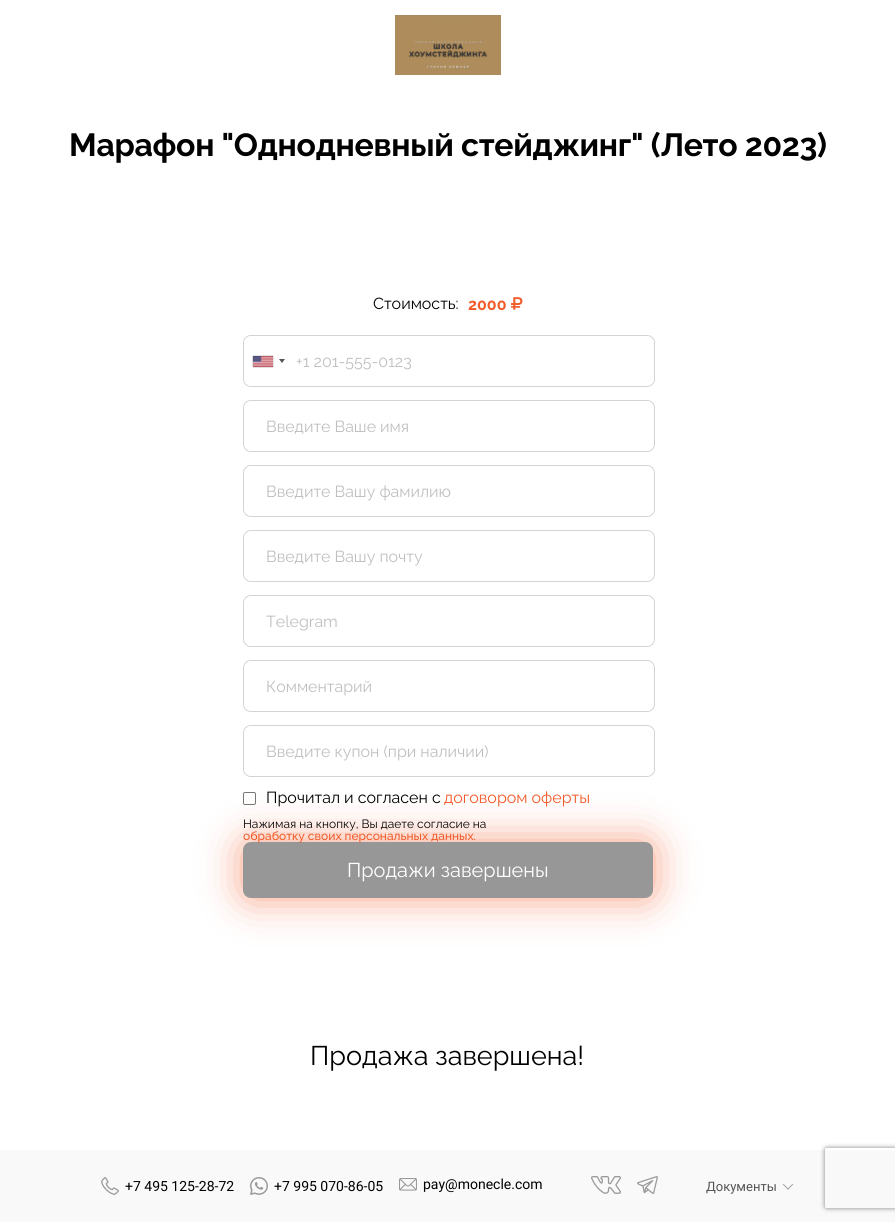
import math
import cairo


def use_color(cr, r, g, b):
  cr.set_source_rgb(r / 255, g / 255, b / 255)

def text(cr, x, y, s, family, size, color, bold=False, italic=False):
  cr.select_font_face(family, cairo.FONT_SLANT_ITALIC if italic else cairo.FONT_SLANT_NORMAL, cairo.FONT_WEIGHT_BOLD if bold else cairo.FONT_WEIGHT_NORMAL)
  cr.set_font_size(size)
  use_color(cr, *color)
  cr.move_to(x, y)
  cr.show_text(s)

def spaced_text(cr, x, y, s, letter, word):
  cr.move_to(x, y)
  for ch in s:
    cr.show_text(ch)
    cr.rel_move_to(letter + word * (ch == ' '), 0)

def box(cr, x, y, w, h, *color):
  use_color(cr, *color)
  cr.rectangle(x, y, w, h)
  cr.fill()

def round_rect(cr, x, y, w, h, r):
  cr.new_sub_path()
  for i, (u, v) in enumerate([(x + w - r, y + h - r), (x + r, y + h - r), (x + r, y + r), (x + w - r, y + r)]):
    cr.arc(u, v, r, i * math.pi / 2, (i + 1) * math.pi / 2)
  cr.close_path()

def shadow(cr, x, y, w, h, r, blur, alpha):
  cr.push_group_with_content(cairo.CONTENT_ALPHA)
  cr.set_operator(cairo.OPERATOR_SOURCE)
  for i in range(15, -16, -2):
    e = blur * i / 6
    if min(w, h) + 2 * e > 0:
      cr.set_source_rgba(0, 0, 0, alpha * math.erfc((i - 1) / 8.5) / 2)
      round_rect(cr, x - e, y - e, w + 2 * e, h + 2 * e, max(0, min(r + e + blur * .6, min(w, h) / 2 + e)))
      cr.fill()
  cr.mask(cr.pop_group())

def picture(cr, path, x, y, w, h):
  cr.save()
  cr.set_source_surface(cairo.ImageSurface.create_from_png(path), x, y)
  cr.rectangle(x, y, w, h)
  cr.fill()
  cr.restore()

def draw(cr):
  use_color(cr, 255, 255, 255)
  cr.paint()
  picture(cr, "img_01.png", 395, 15, 106, 60)
  picture(cr, "img_02.png", 511, 297, 12, 13)
  round_rect(cr, 243.5, 335.5, 411, 51, 7.5)
  use_color(cr, 211, 211, 211)
  cr.set_line_width(1)
  cr.stroke()
  use_color(cr, 255, 255, 255)
  round_rect(cr, 244, 336, 410, 50, 8)
  cr.fill()
  use_color(cr, 136, 136, 136)
  shadow(cr, 253, 356, 20, 11, 0, 0.5, 1)
  picture(cr, "img_03.png", 253, 356, 20, 11)
  use_color(cr, 85, 85, 85)
  cr.new_path()
  cr.move_to(279, 359)
  cr.line_to(285, 359)
  cr.line_to(282, 363)
  cr.close_path()
  cr.fill()
  round_rect(cr, 243.5, 400.5, 411, 51, 7.5)
  use_color(cr, 211, 211, 211)
  cr.stroke()
  use_color(cr, 255, 255, 255)
  round_rect(cr, 244, 401, 410, 50, 8)
  cr.fill()
  round_rect(cr, 243.5, 465.5, 411, 51, 7.5)
  use_color(cr, 211, 211, 211)
  cr.stroke()
  use_color(cr, 255, 255, 255)
  round_rect(cr, 244, 466, 410, 50, 8)
  cr.fill()
  round_rect(cr, 243.5, 530.5, 411, 51, 7.5)
  use_color(cr, 211, 211, 211)
  cr.stroke()
  use_color(cr, 255, 255, 255)
  round_rect(cr, 244, 531, 410, 50, 8)
  cr.fill()
  round_rect(cr, 243.5, 595.5, 411, 51, 7.5)
  use_color(cr, 211, 211, 211)
  cr.stroke()
  use_color(cr, 255, 255, 255)
  round_rect(cr, 244, 596, 410, 50, 8)
  cr.fill()
  round_rect(cr, 243.5, 660.5, 411, 51, 7.5)
  use_color(cr, 211, 211, 211)
  cr.stroke()
  use_color(cr, 255, 255, 255)
  round_rect(cr, 244, 661, 410, 50, 8)
  cr.fill()
  round_rect(cr, 243.5, 725.5, 411, 51, 7.5)
  use_color(cr, 211, 211, 211)
  cr.stroke()
  use_color(cr, 255, 255, 255)
  round_rect(cr, 244, 726, 410, 50, 8)
  cr.fill()
  round_rect(cr, 243.5, 792.5, 12, 12, 1.5)
  use_color(cr, 118, 118, 118)
  cr.stroke()
  use_color(cr, 241, 90, 41)
  shadow(cr, 243, 842, 410, 56, 8, 20, 0.6)
  use_color(cr, 151, 151, 151)
  round_rect(cr, 243, 842, 410, 56, 8)
  cr.fill()
  box(cr, 0, 1150, 895, 72, 249, 249, 249)
  picture(cr, "img_04.png", 101, 1177, 18, 18)
  picture(cr, "img_05.png", 250, 1177, 18, 18)
  picture(cr, "img_06.png", 399, 1178, 18, 13)
  picture(cr, "img_07.png", 591, 1176, 30, 18)
  picture(cr, "img_08.png", 637, 1176, 21, 18)
  cr.new_path()
  cr.move_to(783, 1184)
  cr.line_to(788.5, 1189.5)
  cr.move_to(787.5, 1189.5)
  cr.line_to(793, 1184)
  use_color(cr, 163, 163, 163)
  cr.stroke()
  cr.save()
  cr.set_fill_rule(cairo.FILL_RULE_EVEN_ODD)
  cr.new_path()
  cr.move_to(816, 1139)
  cr.line_to(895, 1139)
  cr.line_to(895, 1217)
  cr.line_to(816, 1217)
  cr.close_path()
  cr.move_to(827, 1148)
  cr.line_to(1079, 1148)
  cr.curve_to(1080, 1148, 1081, 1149, 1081, 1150)
  cr.line_to(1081, 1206)
  cr.curve_to(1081, 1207, 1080, 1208, 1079, 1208)
  cr.line_to(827, 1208)
  cr.curve_to(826, 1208, 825, 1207, 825, 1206)
  cr.line_to(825, 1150)
  cr.curve_to(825, 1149, 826, 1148, 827, 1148)
  cr.close_path()
  cr.clip()
  use_color(cr, 128, 128, 128)
  shadow(cr, 825, 1148, 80, 60, 2, 2.5, 1)
  cr.restore()
  cr.select_font_face("Raleway", cairo.FONT_SLANT_NORMAL, cairo.FONT_WEIGHT_BOLD)
  cr.set_font_size(32)
  use_color(cr, 0, 0, 0)
  spaced_text(cr, 69, 156, "Марафон \"Однодневный стейджинг\" (Лето 2023)", -0.3, 0)
  text(cr, 373, 309, "Стоимость:", "Raleway", 16, (0, 0, 0))
  text(cr, 468, 310, "2000", "Raleway", 16, (241, 90, 41), bold=True)
  text(cr, 296, 367, "+1 201-555-0123", "Raleway", 16, (191, 191, 191))
  text(cr, 266, 432, "Введите Ваше имя", "Raleway", 16, (191, 191, 191))
  text(cr, 266, 497, "Введите Вашу фамилию", "Raleway", 16, (191, 191, 191))
  text(cr, 266, 562, "Введите Вашу почту", "Raleway", 16, (191, 191, 191))
  text(cr, 266, 627, "Telegram", "Raleway", 16, (191, 191, 191))
  text(cr, 266, 692, "Комментарий", "Raleway", 16, (191, 191, 191))
  text(cr, 266, 757, "Введите купон (при наличии)", "Raleway", 16, (191, 191, 191))
  text(cr, 347, 877, "Продажи завершены", "Raleway", 20, (255, 255, 255))
  text(cr, 266, 803, "Прочитал и согласен с", "Raleway", 16, (0, 0, 0))
  text(cr, 444, 803, "договором оферты", "Raleway", 16, (241, 90, 41))
  text(cr, 243, 828, "Нажимая на кнопку, Вы даете согласие на", "Raleway", 12, (0, 0, 0))
  text(cr, 243, 840, "обработку своих персональных данных.", "Raleway Medium", 12, (241, 90, 41))
  text(cr, 310, 1065, "Продажа завершена!", "Raleway", 27, (0, 0, 0))
  text(cr, 125, 1191, "+7 495 125-28-72", "Roboto", 14, (0, 0, 0))
  text(cr, 274, 1191, "+7 995 070-86-05", "Roboto", 14, (0, 0, 0))
  text(cr, 423, 1189, "pay@monecle.com", "Roboto", 14, (0, 0, 0))
  text(cr, 706, 1191, "Документы", "Roboto", 13, (85, 85, 85))


surface = cairo.ImageSurface(cairo.FORMAT_RGB24, 895, 1222)
cr = cairo.Context(surface)
options = cairo.FontOptions()
options.set_hint_metrics(cairo.HINT_METRICS_OFF)
options.set_hint_style(cairo.HINT_STYLE_NONE)
cr.set_font_options(options)
cr.set_miter_limit(4)
draw(cr)
surface.write_to_png("out.png")
